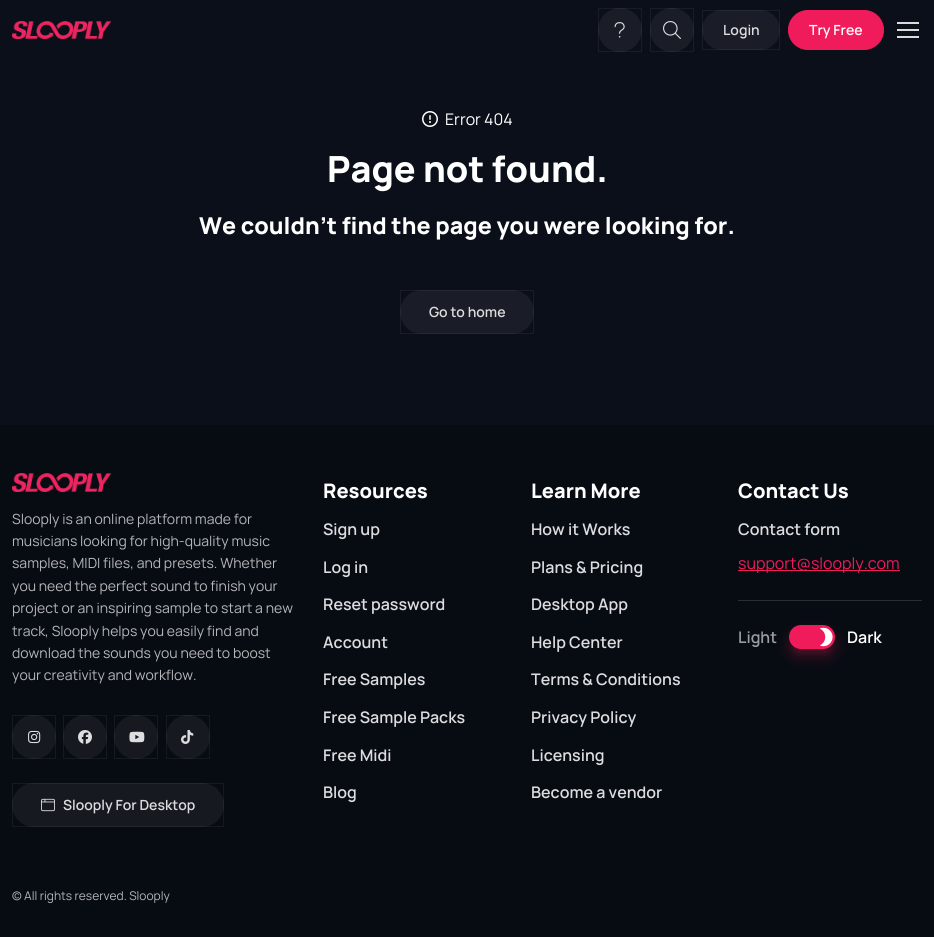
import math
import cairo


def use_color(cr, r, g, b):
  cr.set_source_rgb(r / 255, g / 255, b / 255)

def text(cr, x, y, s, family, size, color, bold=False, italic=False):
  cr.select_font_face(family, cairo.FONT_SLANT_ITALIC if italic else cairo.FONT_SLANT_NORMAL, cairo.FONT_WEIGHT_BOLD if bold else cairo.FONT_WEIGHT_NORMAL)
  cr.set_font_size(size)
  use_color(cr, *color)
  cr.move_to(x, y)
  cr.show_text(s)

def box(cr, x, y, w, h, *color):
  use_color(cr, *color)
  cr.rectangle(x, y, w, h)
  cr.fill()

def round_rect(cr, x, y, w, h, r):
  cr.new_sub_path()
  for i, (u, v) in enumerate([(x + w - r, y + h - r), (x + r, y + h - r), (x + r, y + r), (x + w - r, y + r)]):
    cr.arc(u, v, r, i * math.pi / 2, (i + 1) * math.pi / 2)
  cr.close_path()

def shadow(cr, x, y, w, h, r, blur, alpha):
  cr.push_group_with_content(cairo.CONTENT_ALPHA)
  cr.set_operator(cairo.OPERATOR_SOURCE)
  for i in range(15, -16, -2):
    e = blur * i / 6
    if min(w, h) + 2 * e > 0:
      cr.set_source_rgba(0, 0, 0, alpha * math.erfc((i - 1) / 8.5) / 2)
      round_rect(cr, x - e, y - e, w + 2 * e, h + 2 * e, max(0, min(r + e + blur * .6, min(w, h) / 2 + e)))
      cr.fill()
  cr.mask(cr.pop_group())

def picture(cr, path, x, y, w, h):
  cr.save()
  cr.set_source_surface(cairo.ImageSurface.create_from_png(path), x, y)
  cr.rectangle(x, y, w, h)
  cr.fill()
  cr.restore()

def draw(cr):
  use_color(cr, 11, 15, 25)
  cr.paint()
  picture(cr, "img_01.png", 12, 21, 100, 18)
  use_color(cr, 26, 29, 39)
  cr.arc(620, 30, 22, 0, 2 * math.pi)
  cr.fill()
  cr.rectangle(598.5, 8.5, 43, 43)
  cr.set_source_rgba(1, 1, 1, 0.06)
  cr.set_line_width(1)
  cr.stroke()
  picture(cr, "img_02.png", 614, 22, 11, 16)
  use_color(cr, 26, 29, 39)
  cr.arc(672, 30, 22, 0, 2 * math.pi)
  cr.fill()
  cr.rectangle(650.5, 8.5, 43, 43)
  cr.set_source_rgba(1, 1, 1, 0.06)
  cr.stroke()
  picture(cr, "img_03.png", 663, 21, 18, 18)
  use_color(cr, 26, 29, 39)
  round_rect(cr, 702, 10, 78, 40, 20)
  cr.fill()
  cr.rectangle(702.5, 10.5, 77, 39)
  cr.set_source_rgba(1, 1, 1, 0.06)
  cr.stroke()
  use_color(cr, 240, 27, 91)
  round_rect(cr, 788.5, 10.5, 95, 39, 19.5)
  cr.fill_preserve()
  cr.stroke()
  box(cr, 897, 29, 22, 2, 218, 219, 221)
  box(cr, 897, 22, 22, 2, 218, 219, 221)
  box(cr, 897, 36, 22, 2, 218, 219, 221)
  picture(cr, "img_04.png", 422, 111, 16, 16)
  use_color(cr, 26, 29, 39)
  round_rect(cr, 400, 290, 134, 44, 22)
  cr.fill()
  cr.rectangle(400.5, 290.5, 133, 43)
  cr.set_source_rgba(1, 1, 1, 0.06)
  cr.stroke()
  box(cr, 0, 425, 934, 512, 7, 11, 18)
  picture(cr, "img_05.png", 12, 473, 100, 19)
  use_color(cr, 22, 26, 32)
  cr.arc(34, 737, 22, 0, 2 * math.pi)
  cr.fill()
  cr.rectangle(12.5, 715.5, 43, 43)
  cr.set_source_rgba(1, 1, 1, 0.06)
  cr.stroke()
  picture(cr, "img_06.png", 28, 730, 13, 14)
  use_color(cr, 22, 26, 32)
  cr.arc(85, 737, 22, 0, 2 * math.pi)
  cr.fill()
  cr.rectangle(63.5, 715.5, 43, 43)
  cr.set_source_rgba(1, 1, 1, 0.06)
  cr.stroke()
  picture(cr, "img_07.png", 78, 730, 14, 14)
  use_color(cr, 22, 26, 32)
  cr.arc(136, 737, 22, 0, 2 * math.pi)
  cr.fill()
  cr.rectangle(114.5, 715.5, 43, 43)
  cr.set_source_rgba(1, 1, 1, 0.06)
  cr.stroke()
  picture(cr, "img_08.png", 129, 731, 16, 12)
  use_color(cr, 22, 26, 32)
  cr.arc(188, 737, 22, 0, 2 * math.pi)
  cr.fill()
  cr.rectangle(166.5, 715.5, 43, 43)
  cr.set_source_rgba(1, 1, 1, 0.06)
  cr.stroke()
  picture(cr, "img_09.png", 181, 730, 13, 14)
  use_color(cr, 22, 26, 32)
  round_rect(cr, 12, 783, 212, 44, 22)
  cr.fill()
  cr.rectangle(12.5, 783.5, 211, 43)
  cr.set_source_rgba(1, 1, 1, 0.06)
  cr.stroke()
  picture(cr, "img_10.png", 41, 798, 14, 14)
  box(cr, 738, 570, 162, 1, 240, 27, 91)
  box(cr, 738, 600, 184, 1, 42, 45, 51)
  use_color(cr, 170, 23, 64)
  shadow(cr, 797, 641, 30, 8, 4, 9, 0.9)
  use_color(cr, 240, 27, 91)
  round_rect(cr, 789, 625, 46, 24, 12)
  cr.fill()
  picture(cr, "img_11.png", 819, 627, 14, 20)
  text(cr, 723, 35, "Login", "Manrope SemiBold", 14, (221, 221, 223))
  text(cr, 809, 35, "Try Free", "Manrope SemiBold", 14, (255, 255, 255))
  text(cr, 445, 125, "Error 404", "Manrope", 16, (255, 255, 255))
  text(cr, 327, 182, "Page not found.", "Manrope ExtraBold", 36, (255, 255, 255))
  text(cr, 199, 234, "We couldn’t find the page you were looking for.", "Manrope ExtraBold", 23.2, (255, 255, 255))
  text(cr, 429, 317, "Go to home", "Manrope SemiBold", 14, (221, 221, 223))
  text(cr, 12, 524, "Slooply is an online platform made for", "Manrope", 14, (181, 182, 184))
  text(cr, 12, 546, "musicians looking for high-quality music", "Manrope", 14, (181, 182, 184))
  text(cr, 12, 568, "samples, MIDI files, and presets. Whether", "Manrope", 14, (181, 182, 184))
  text(cr, 12, 591, "you need the perfect sound to finish your", "Manrope", 14, (181, 182, 184))
  text(cr, 12, 613, "project or an inspiring sample to start a new", "Manrope", 14, (181, 182, 184))
  text(cr, 12, 636, "track, Slooply helps you easily find and", "Manrope", 14, (181, 182, 184))
  text(cr, 12, 658, "download the sounds you need to boost", "Manrope", 14, (181, 182, 184))
  text(cr, 12, 680, "your creativity and workflow.", "Manrope", 14, (181, 182, 184))
  text(cr, 63, 810, "Slooply For Desktop", "Manrope SemiBold", 14, (221, 221, 223))
  text(cr, 323, 498, "Resources", "Manrope ExtraBold", 20, (255, 255, 255))
  text(cr, 323, 535, "Sign up", "Manrope SemiBold", 16, (221, 221, 223))
  text(cr, 323, 573, "Log in", "Manrope SemiBold", 16, (221, 221, 223))
  text(cr, 323, 610, "Reset password", "Manrope SemiBold", 16, (221, 221, 223))
  text(cr, 323, 648, "Account", "Manrope SemiBold", 16, (221, 221, 223))
  text(cr, 323, 685, "Free Samples", "Manrope SemiBold", 16, (221, 221, 223))
  text(cr, 323, 723, "Free Sample Packs", "Manrope SemiBold", 16, (221, 221, 223))
  text(cr, 323, 761, "Free Midi", "Manrope SemiBold", 16, (221, 221, 223))
  text(cr, 323, 798, "Blog", "Manrope SemiBold", 16, (221, 221, 223))
  text(cr, 531, 498, "Learn More", "Manrope ExtraBold", 20, (255, 255, 255))
  text(cr, 531, 535, "How it Works", "Manrope SemiBold", 16, (221, 221, 223))
  text(cr, 531, 573, "Plans & Pricing", "Manrope SemiBold", 16, (221, 221, 223))
  text(cr, 531, 610, "Desktop App", "Manrope SemiBold", 16, (221, 221, 223))
  text(cr, 531, 648, "Help Center", "Manrope SemiBold", 16, (221, 221, 223))
  text(cr, 531, 685, "Terms & Conditions", "Manrope SemiBold", 16, (221, 221, 223))
  text(cr, 531, 723, "Privacy Policy", "Manrope SemiBold", 16, (221, 221, 223))
  text(cr, 531, 761, "Licensing", "Manrope SemiBold", 16, (221, 221, 223))
  text(cr, 531, 798, "Become a vendor", "Manrope SemiBold", 16, (221, 221, 223))
  text(cr, 738, 498, "Contact Us", "Manrope ExtraBold", 20, (255, 255, 255))
  text(cr, 738, 535, "Contact form", "Manrope SemiBold", 16, (221, 221, 223))
  text(cr, 738, 569, "support@slooply.com", "Manrope", 16, (240, 27, 91))
  text(cr, 738, 643, "Light", "Manrope SemiBold", 16, (156, 157, 160))
  text(cr, 847, 643, "Dark", "Manrope SemiBold", 16, (255, 255, 255))
  text(cr, 12, 900, "© All rights reserved. Slooply", "Manrope", 12, (181, 182, 184))


surface = cairo.ImageSurface(cairo.FORMAT_RGB24, 934, 937)
cr = cairo.Context(surface)
options = cairo.FontOptions()
options.set_hint_metrics(cairo.HINT_METRICS_OFF)
options.set_hint_style(cairo.HINT_STYLE_NONE)
cr.set_font_options(options)
cr.set_miter_limit(4)
draw(cr)
surface.write_to_png("out.png")
